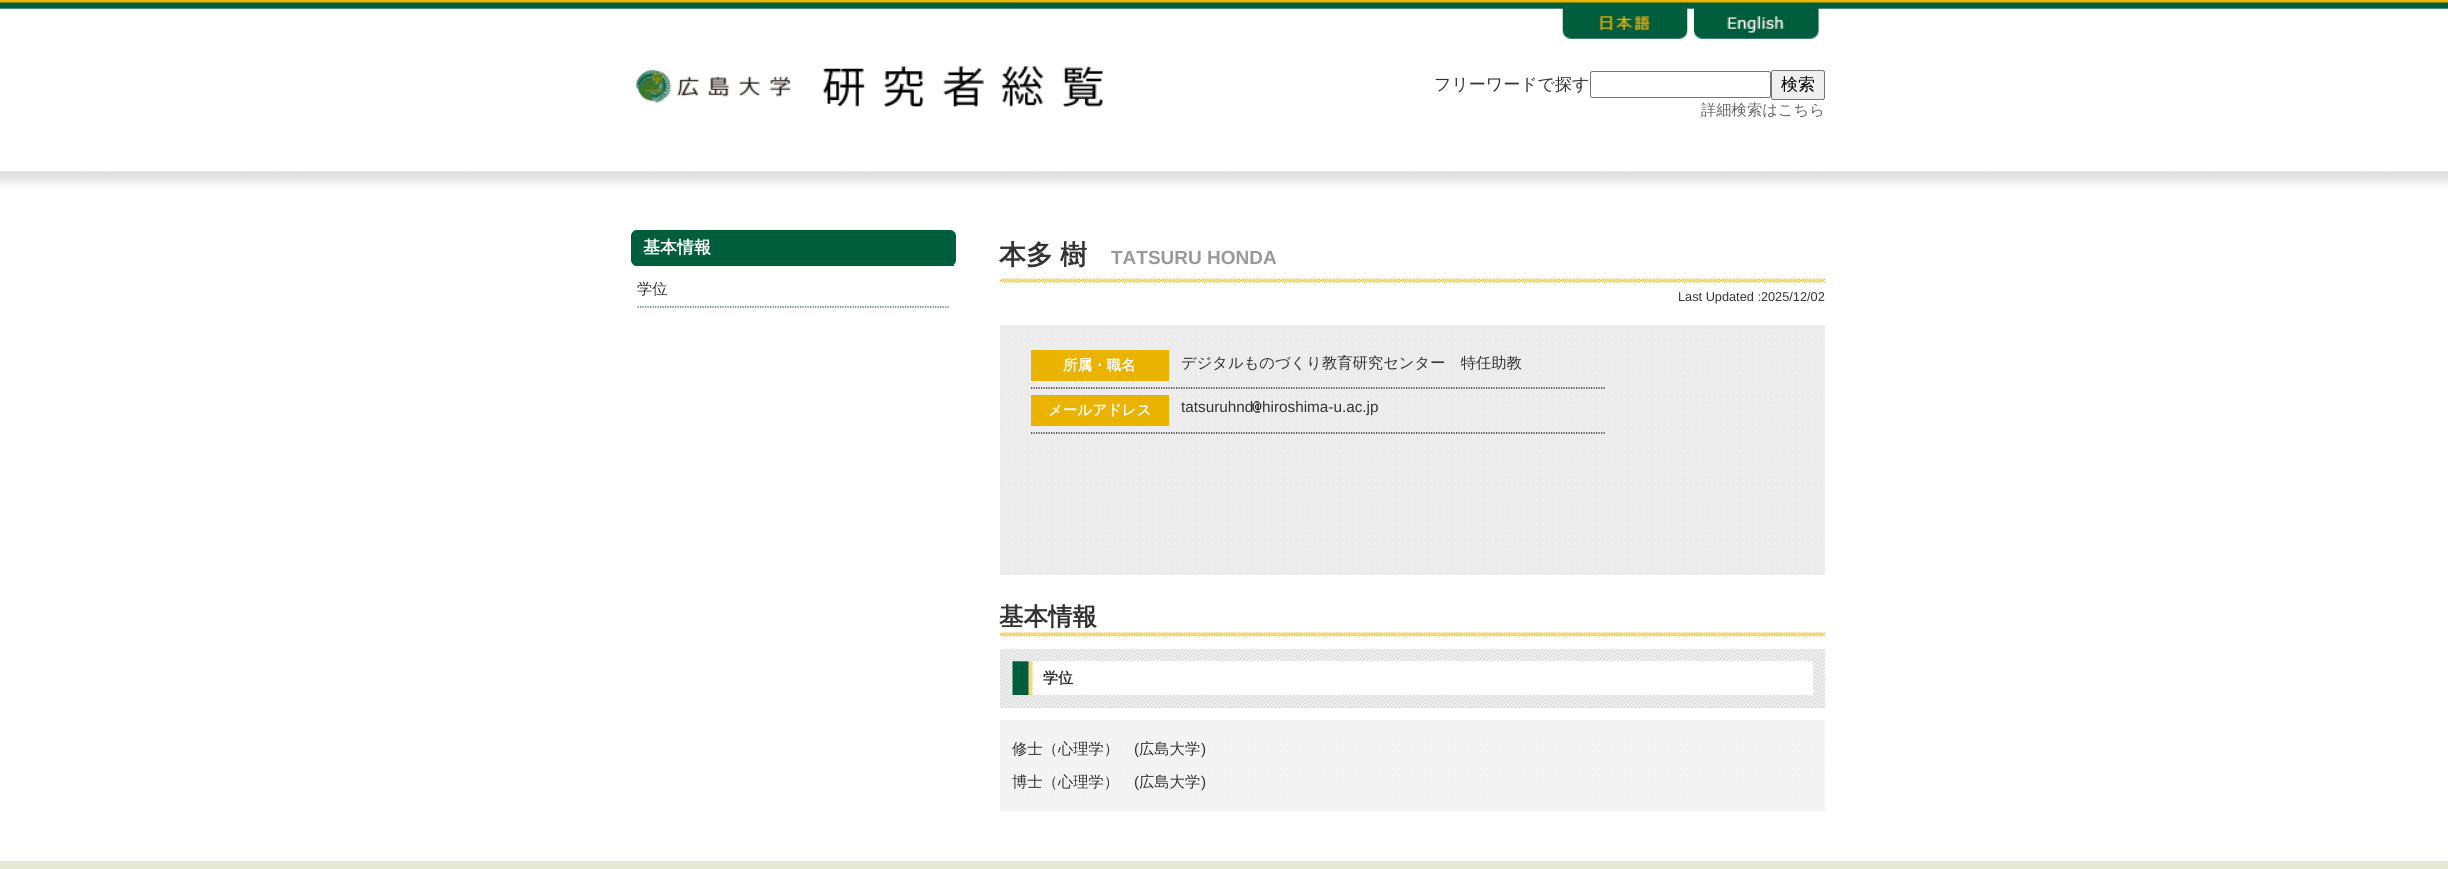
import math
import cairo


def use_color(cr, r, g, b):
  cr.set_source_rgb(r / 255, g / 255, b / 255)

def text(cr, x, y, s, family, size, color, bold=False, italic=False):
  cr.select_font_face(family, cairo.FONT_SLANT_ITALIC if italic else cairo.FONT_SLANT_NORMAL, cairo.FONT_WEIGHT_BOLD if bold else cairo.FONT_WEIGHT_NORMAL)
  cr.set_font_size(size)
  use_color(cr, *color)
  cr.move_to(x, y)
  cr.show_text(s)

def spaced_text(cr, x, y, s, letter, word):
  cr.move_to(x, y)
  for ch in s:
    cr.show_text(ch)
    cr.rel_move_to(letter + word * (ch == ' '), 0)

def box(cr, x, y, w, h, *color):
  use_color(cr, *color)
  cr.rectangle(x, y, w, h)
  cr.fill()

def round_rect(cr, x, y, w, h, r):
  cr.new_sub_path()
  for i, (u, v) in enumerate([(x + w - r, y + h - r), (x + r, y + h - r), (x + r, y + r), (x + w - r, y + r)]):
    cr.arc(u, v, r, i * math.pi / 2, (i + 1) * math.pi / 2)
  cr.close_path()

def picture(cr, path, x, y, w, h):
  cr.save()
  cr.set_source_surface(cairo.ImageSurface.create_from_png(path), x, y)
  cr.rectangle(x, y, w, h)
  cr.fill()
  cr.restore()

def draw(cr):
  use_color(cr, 255, 255, 255)
  cr.paint()
  picture(cr, "img_01.png", 0, 0, 2448, 187)
  picture(cr, "img_02.png", 636, 69, 155, 34)
  picture(cr, "img_03.png", 822, 66, 281, 42)
  picture(cr, "img_04.png", 1562, 8, 126, 31)
  picture(cr, "img_05.png", 1693, 8, 126, 31)
  round_rect(cr, 1590.5, 71.5, 180, 26, 2)
  use_color(cr, 118, 118, 118)
  cr.set_line_width(1)
  cr.stroke()
  use_color(cr, 239, 239, 239)
  round_rect(cr, 1771.5, 70.5, 53, 29, 2)
  cr.fill_preserve()
  use_color(cr, 118, 118, 118)
  cr.stroke()
  use_color(cr, 0, 94, 60)
  round_rect(cr, 631, 230, 325, 36, 6)
  cr.fill()
  box(cr, 635, 265, 319, 1, 0, 94, 60)
  cr.new_path()
  cr.move_to(637.5, 307)
  cr.line_to(950, 307)
  cr.set_line_width(1.2)
  cr.set_dash([1.25, 1.25])
  cr.stroke()
  picture(cr, "img_06.png", 1000, 278, 825, 5)
  box(cr, 1000, 325, 825, 250, 236, 236, 236)
  picture(cr, "img_07.png", 1005, 330, 820, 245)
  cr.new_path()
  cr.move_to(1031, 388)
  cr.line_to(1606, 388)
  use_color(cr, 0, 0, 0)
  cr.stroke()
  box(cr, 1031, 350, 138, 31, 234, 179, 0)
  cr.new_path()
  cr.move_to(1031, 433)
  cr.line_to(1606, 433)
  use_color(cr, 0, 0, 0)
  cr.stroke()
  box(cr, 1031, 395, 138, 31, 234, 179, 0)
  picture(cr, "img_08.png", 1252, 401, 10, 12)
  picture(cr, "img_09.png", 1000, 632, 825, 5)
  box(cr, 1000, 649, 825, 59, 220, 221, 221)
  picture(cr, "img_10.png", 1000, 649, 825, 59)
  box(cr, 1013, 661, 800, 34, 255, 255, 255)
  picture(cr, "img_11.png", 1012, 661, 21, 34)
  box(cr, 1000, 720, 825, 91, 243, 243, 243)
  picture(cr, "img_12.png", 1005, 725, 820, 76)
  box(cr, 0, 861, 2448, 8, 229, 232, 212)
  text(cr, 1434, 90, "フリーワードで探す", "WenQuanYi Zen Hei Medium", 17, (51, 51, 51))
  text(cr, 1781, 90, "検索", "WenQuanYi Zen Hei Medium", 17, (0, 0, 0))
  text(cr, 1701, 115, "詳細検索はこちら", "WenQuanYi Zen Hei Medium", 15.3, (102, 102, 102))
  text(cr, 643, 253, "基本情報", "WenQuanYi Zen Hei", 17, (255, 255, 255), bold=True)
  text(cr, 637, 294, "学位", "WenQuanYi Zen Hei Medium", 15.3, (51, 51, 51))
  cr.select_font_face("WenQuanYi Zen Hei", cairo.FONT_SLANT_NORMAL, cairo.FONT_WEIGHT_BOLD)
  cr.set_font_size(27)
  spaced_text(cr, 999, 264, "本多 樹", 0, -1)
  text(cr, 1111, 264, "TATSURU HONDA", "Liberation Sans", 19, (153, 153, 153), bold=True)
  text(cr, 1678, 301, "Last Updated :2025/12/02", "Liberation Sans", 12.75, (51, 51, 51))
  text(cr, 1063, 370, "所属・職名", "WenQuanYi Zen Hei", 14.5, (255, 255, 255), bold=True)
  text(cr, 1181, 368, "デジタルものづくり教育研究センター　特任助教", "WenQuanYi Zen Hei Medium", 15.3, (51, 51, 51))
  text(cr, 1048, 415, "メールアドレス", "WenQuanYi Zen Hei", 14.5, (255, 255, 255), bold=True)
  text(cr, 1181, 412, "tatsuruhnd", "Liberation Sans", 15.3, (51, 51, 51))
  text(cr, 1262, 412, "hiroshima-u.ac.jp", "Liberation Sans", 15.3, (51, 51, 51))
  text(cr, 999, 625, "基本情報", "WenQuanYi Zen Hei", 24.5, (51, 51, 51), bold=True)
  text(cr, 1043, 683, "学位", "WenQuanYi Zen Hei", 15, (51, 51, 51), bold=True)
  text(cr, 1012, 754, "修士（心理学）", "WenQuanYi Zen Hei Medium", 15.3, (51, 51, 51))
  text(cr, 1134, 754, "(", "Liberation Sans", 15.3, (51, 51, 51))
  text(cr, 1139, 754, "広島大学", "WenQuanYi Zen Hei Medium", 15.3, (51, 51, 51))
  text(cr, 1201, 754, ")", "Liberation Sans", 15.3, (51, 51, 51))
  text(cr, 1012, 787, "博士（心理学）", "WenQuanYi Zen Hei Medium", 15.3, (51, 51, 51))
  text(cr, 1134, 787, "(", "Liberation Sans", 15.3, (51, 51, 51))
  text(cr, 1139, 787, "広島大学", "WenQuanYi Zen Hei Medium", 15.3, (51, 51, 51))
  text(cr, 1201, 787, ")", "Liberation Sans", 15.3, (51, 51, 51))


surface = cairo.ImageSurface(cairo.FORMAT_RGB24, 2448, 869)
cr = cairo.Context(surface)
options = cairo.FontOptions()
options.set_hint_metrics(cairo.HINT_METRICS_OFF)
options.set_hint_style(cairo.HINT_STYLE_NONE)
cr.set_font_options(options)
cr.set_miter_limit(4)
draw(cr)
surface.write_to_png("out.png")
